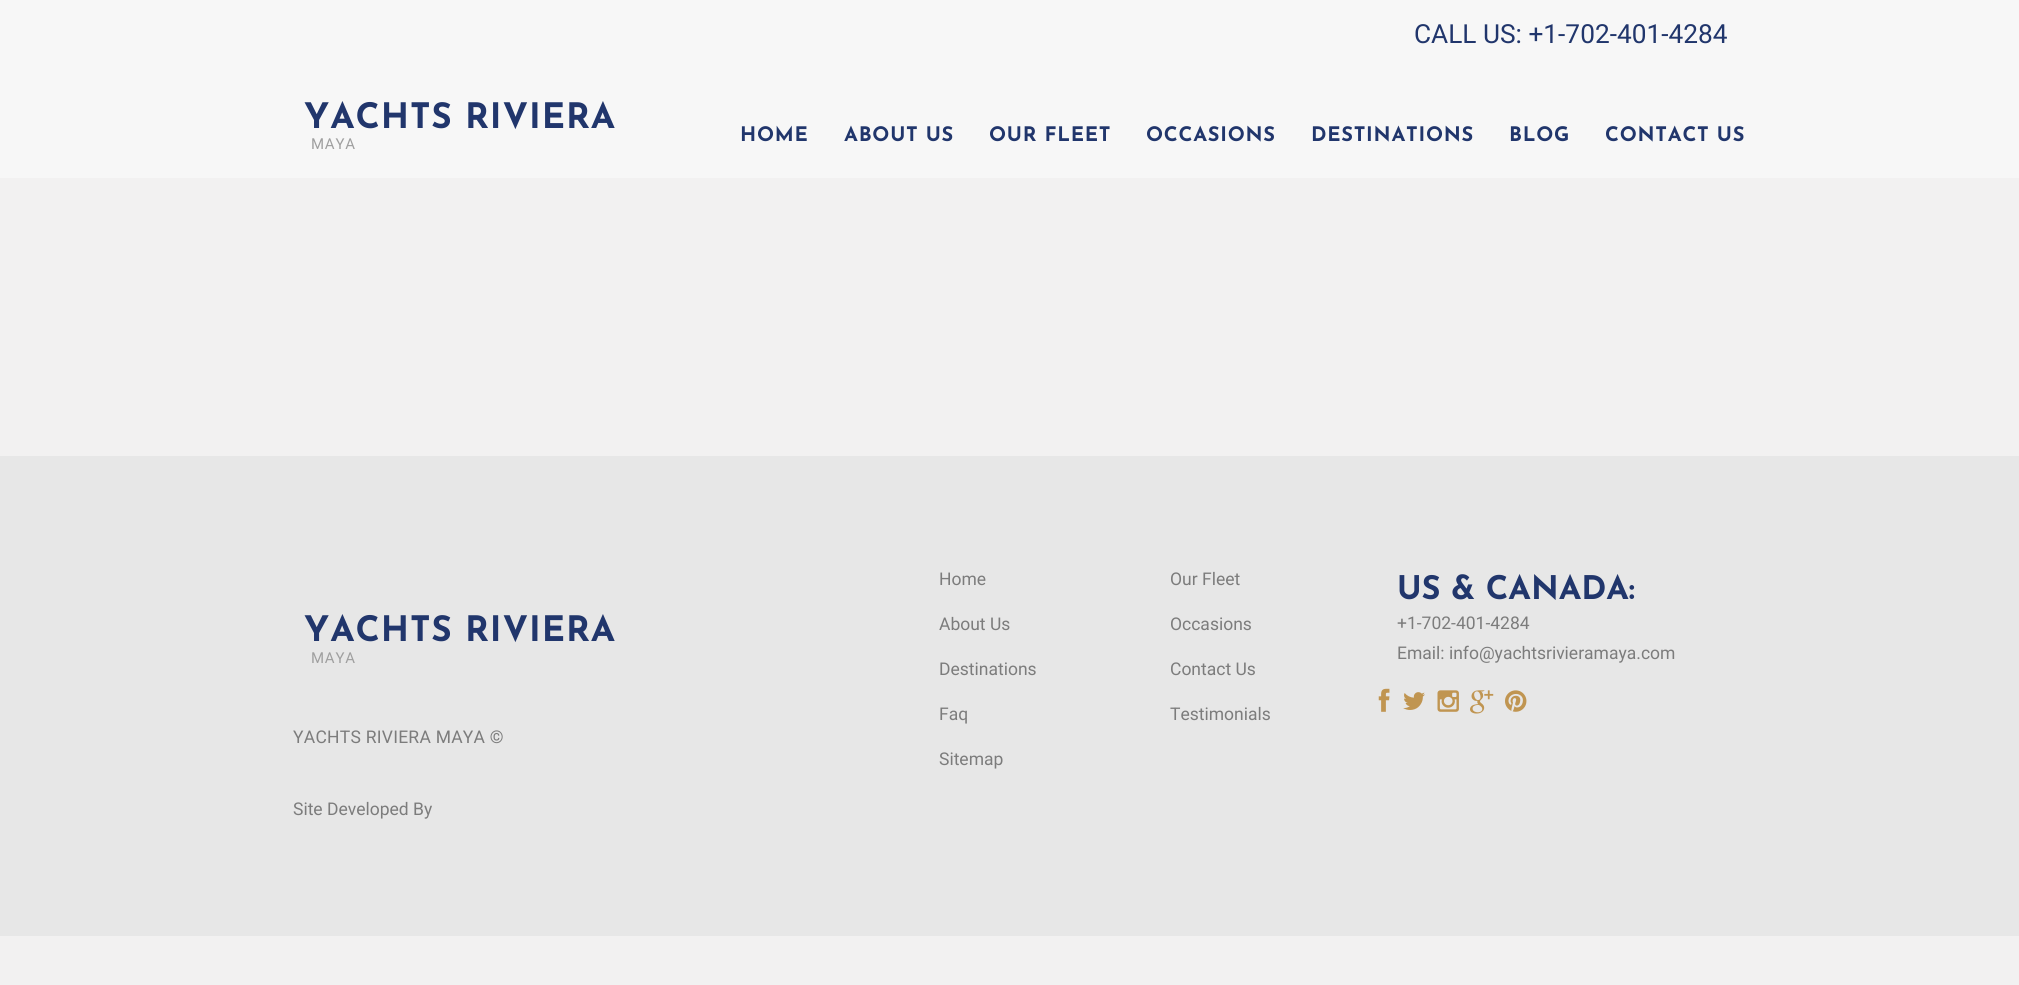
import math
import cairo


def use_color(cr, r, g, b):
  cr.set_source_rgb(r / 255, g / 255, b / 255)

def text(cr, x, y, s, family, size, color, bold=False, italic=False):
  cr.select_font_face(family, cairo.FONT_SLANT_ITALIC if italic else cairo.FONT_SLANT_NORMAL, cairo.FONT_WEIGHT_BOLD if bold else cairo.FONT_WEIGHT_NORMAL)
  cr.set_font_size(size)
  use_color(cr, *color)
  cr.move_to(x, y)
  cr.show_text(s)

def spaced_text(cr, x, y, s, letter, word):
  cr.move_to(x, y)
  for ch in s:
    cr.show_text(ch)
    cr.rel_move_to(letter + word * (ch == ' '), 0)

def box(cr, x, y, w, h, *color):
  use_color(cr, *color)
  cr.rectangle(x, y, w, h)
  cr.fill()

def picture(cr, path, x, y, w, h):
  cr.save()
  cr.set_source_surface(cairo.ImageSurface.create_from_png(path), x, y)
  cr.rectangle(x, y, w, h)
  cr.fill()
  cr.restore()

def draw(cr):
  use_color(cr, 242, 241, 241)
  cr.paint()
  box(cr, 0, 0, 2019, 178, 247, 247, 247)
  box(cr, 0, 456, 2019, 480, 231, 231, 231)
  picture(cr, "img_01.png", 1378, 688, 12, 24)
  picture(cr, "img_02.png", 1403, 692, 22, 18)
  picture(cr, "img_03.png", 1437, 690, 22, 22)
  picture(cr, "img_04.png", 1470, 690, 24, 24)
  picture(cr, "img_05.png", 1505, 690, 22, 22)
  text(cr, 1414, 43, "CALL US: +1-702-401-4284", "Roboto", 26.25, (33, 54, 108))
  cr.select_font_face("Josefin Sans", cairo.FONT_SLANT_NORMAL, cairo.FONT_WEIGHT_BOLD)
  cr.set_font_size(35)
  spaced_text(cr, 304, 128, "YACHTS RIVIERA", 0.9, 0)
  cr.select_font_face("Roboto")
  cr.set_font_size(15)
  use_color(cr, 159, 159, 159)
  spaced_text(cr, 311, 149, "MAYA", 0.75, 0)
  cr.select_font_face("Josefin Sans", cairo.FONT_SLANT_NORMAL, cairo.FONT_WEIGHT_BOLD)
  cr.set_font_size(20)
  use_color(cr, 33, 54, 108)
  spaced_text(cr, 740, 141, "HOME", 0.75, 0)
  spaced_text(cr, 844, 141, "ABOUT US", 0.75, 0)
  spaced_text(cr, 989, 141, "OUR FLEET", 0.75, 0)
  spaced_text(cr, 1146, 141, "OCCASIONS", 0.75, 0)
  spaced_text(cr, 1311, 141, "DESTINATIONS", 0.75, 0)
  spaced_text(cr, 1509, 141, "BLOG", 0.75, 0)
  spaced_text(cr, 1605, 141, "CONTACT US", 0.75, 0)
  cr.set_font_size(35)
  spaced_text(cr, 304, 641, "YACHTS RIVIERA", 0.9, 0)
  cr.select_font_face("Roboto")
  cr.set_font_size(15)
  use_color(cr, 159, 159, 159)
  spaced_text(cr, 311, 663, "MAYA", 0.75, 0)
  cr.set_font_size(17.5)
  use_color(cr, 124, 124, 124)
  spaced_text(cr, 293, 743, "YACHTS RIVIERA MAYA ©", 0.25, 0)
  text(cr, 939, 585, "Home", "Roboto", 17.5, (124, 124, 124))
  text(cr, 939, 630, "About Us", "Roboto", 17.5, (124, 124, 124))
  text(cr, 939, 675, "Destinations", "Roboto", 17.5, (124, 124, 124))
  text(cr, 939, 720, "Faq", "Roboto", 17.5, (124, 124, 124))
  text(cr, 939, 765, "Sitemap", "Roboto", 17.5, (124, 124, 124))
  text(cr, 1170, 585, "Our Fleet", "Roboto", 17.5, (124, 124, 124))
  text(cr, 1170, 630, "Occasions", "Roboto", 17.5, (124, 124, 124))
  text(cr, 1170, 675, "Contact Us", "Roboto", 17.5, (124, 124, 124))
  text(cr, 1170, 720, "Testimonials", "Roboto", 17.5, (124, 124, 124))
  text(cr, 1397, 599, "US & CANADA:", "Josefin Sans", 32.5, (33, 54, 108), bold=True)
  text(cr, 1397, 629, "+1-702-401-4284", "Roboto", 17.5, (124, 124, 124))
  text(cr, 1397, 659, "Email: info@yachtsrivieramaya.com", "Roboto", 17.5, (124, 124, 124))
  text(cr, 293, 815, "Site Developed By", "Roboto", 17.5, (124, 124, 124))


surface = cairo.ImageSurface(cairo.FORMAT_RGB24, 2019, 985)
cr = cairo.Context(surface)
options = cairo.FontOptions()
options.set_hint_metrics(cairo.HINT_METRICS_OFF)
options.set_hint_style(cairo.HINT_STYLE_NONE)
cr.set_font_options(options)
cr.set_miter_limit(4)
draw(cr)
surface.write_to_png("out.png")
